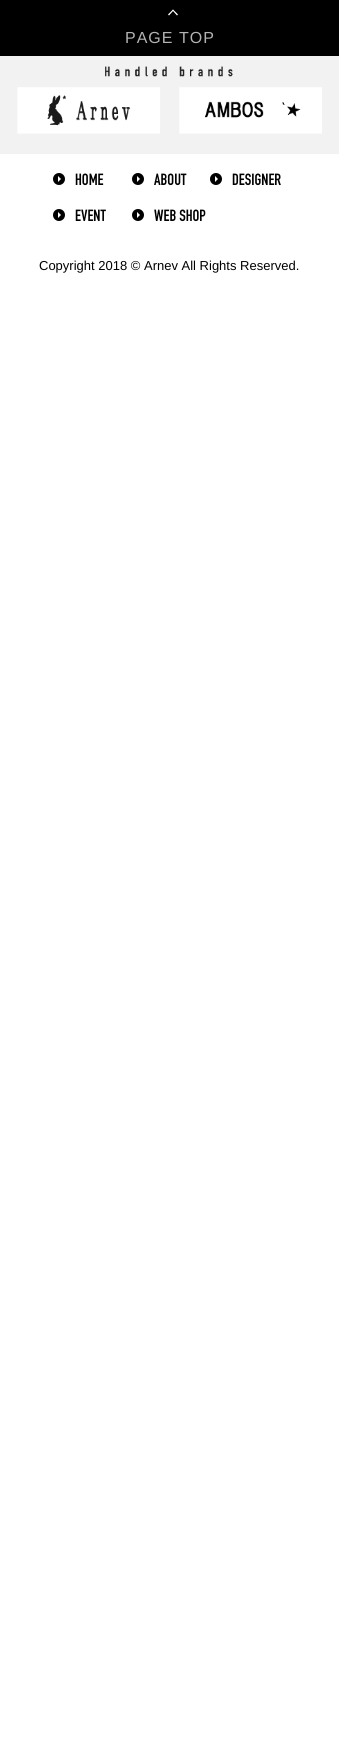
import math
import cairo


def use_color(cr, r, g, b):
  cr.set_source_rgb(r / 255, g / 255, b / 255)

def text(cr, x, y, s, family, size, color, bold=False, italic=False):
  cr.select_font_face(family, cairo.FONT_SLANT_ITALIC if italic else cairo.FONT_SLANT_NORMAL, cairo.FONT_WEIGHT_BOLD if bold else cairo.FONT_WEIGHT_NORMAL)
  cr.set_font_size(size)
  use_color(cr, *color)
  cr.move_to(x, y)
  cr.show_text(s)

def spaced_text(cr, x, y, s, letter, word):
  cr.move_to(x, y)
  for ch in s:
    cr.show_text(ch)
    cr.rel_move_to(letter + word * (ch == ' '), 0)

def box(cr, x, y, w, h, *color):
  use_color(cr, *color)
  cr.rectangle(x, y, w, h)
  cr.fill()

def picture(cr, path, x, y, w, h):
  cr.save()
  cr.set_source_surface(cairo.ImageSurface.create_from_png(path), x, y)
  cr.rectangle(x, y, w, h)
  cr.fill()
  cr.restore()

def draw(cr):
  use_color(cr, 255, 255, 255)
  cr.paint()
  box(cr, 0, 0, 339, 56, 0, 0, 0)
  use_color(cr, 255, 255, 255)
  cr.new_path()
  cr.move_to(168, 14.5)
  cr.line_to(173, 9.5)
  cr.line_to(173.5, 10.5)
  cr.line_to(169, 15.5)
  cr.close_path()
  cr.fill()
  cr.new_path()
  cr.move_to(172.5, 10.5)
  cr.line_to(173, 9.5)
  cr.line_to(178, 14.5)
  cr.line_to(177, 15.5)
  cr.close_path()
  cr.fill()
  box(cr, 0, 56, 339, 98, 242, 242, 242)
  picture(cr, "img_01.png", 17, 66, 305, 68)
  use_color(cr, 0, 0, 0)
  cr.arc(59, 179, 6, 0, 2 * math.pi)
  cr.fill()
  use_color(cr, 255, 255, 255)
  cr.new_path()
  cr.move_to(58, 182)
  cr.line_to(58, 176)
  cr.line_to(61, 179)
  cr.close_path()
  cr.fill()
  use_color(cr, 0, 0, 0)
  cr.arc(138, 179, 6, 0, 2 * math.pi)
  cr.fill()
  use_color(cr, 255, 255, 255)
  cr.new_path()
  cr.move_to(137, 182)
  cr.line_to(137, 176)
  cr.line_to(140, 179)
  cr.close_path()
  cr.fill()
  use_color(cr, 0, 0, 0)
  cr.arc(216, 179, 6, 0, 2 * math.pi)
  cr.fill()
  use_color(cr, 255, 255, 255)
  cr.new_path()
  cr.move_to(215, 182)
  cr.line_to(215, 176)
  cr.line_to(218, 179)
  cr.close_path()
  cr.fill()
  use_color(cr, 0, 0, 0)
  cr.arc(59, 215, 6, 0, 2 * math.pi)
  cr.fill()
  use_color(cr, 255, 255, 255)
  cr.new_path()
  cr.move_to(58, 218)
  cr.line_to(58, 212)
  cr.line_to(61, 215)
  cr.close_path()
  cr.fill()
  use_color(cr, 0, 0, 0)
  cr.arc(138, 215, 6, 0, 2 * math.pi)
  cr.fill()
  use_color(cr, 255, 255, 255)
  cr.new_path()
  cr.move_to(137, 218)
  cr.line_to(137, 212)
  cr.line_to(140, 215)
  cr.close_path()
  cr.fill()
  cr.select_font_face("Liberation Sans")
  cr.set_font_size(16)
  use_color(cr, 179, 179, 179)
  spaced_text(cr, 125, 43, "PAGE TOP", 1, 0)
  text(cr, 75, 185, "HOME", "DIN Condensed", 16, (0, 0, 0), bold=True)
  text(cr, 154, 185, "ABOUT", "DIN Condensed", 16, (0, 0, 0), bold=True)
  text(cr, 232, 185, "DESIGNER", "DIN Condensed", 16, (0, 0, 0), bold=True)
  text(cr, 75, 221, "EVENT", "DIN Condensed", 16, (0, 0, 0), bold=True)
  text(cr, 154, 221, "WEB SHOP", "DIN Condensed", 16, (0, 0, 0), bold=True)
  text(cr, 39, 270, "Copyright 2018 © Arnev All Rights Reserved.", "Liberation Sans", 13, (0, 0, 0))


surface = cairo.ImageSurface(cairo.FORMAT_RGB24, 339, 1748)
cr = cairo.Context(surface)
options = cairo.FontOptions()
options.set_hint_metrics(cairo.HINT_METRICS_OFF)
options.set_hint_style(cairo.HINT_STYLE_NONE)
cr.set_font_options(options)
cr.set_miter_limit(4)
draw(cr)
surface.write_to_png("out.png")
